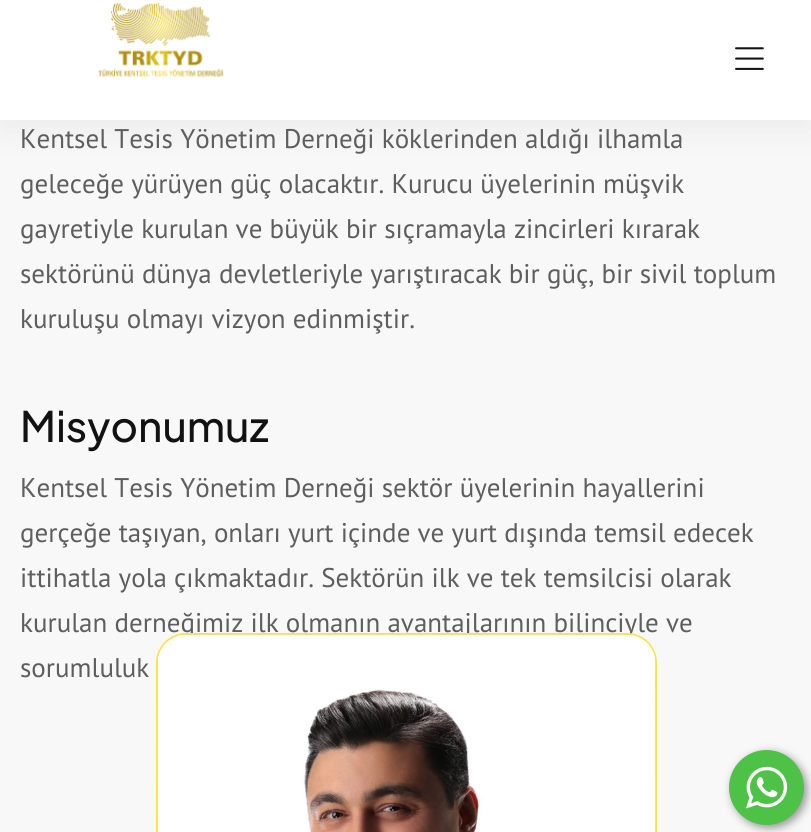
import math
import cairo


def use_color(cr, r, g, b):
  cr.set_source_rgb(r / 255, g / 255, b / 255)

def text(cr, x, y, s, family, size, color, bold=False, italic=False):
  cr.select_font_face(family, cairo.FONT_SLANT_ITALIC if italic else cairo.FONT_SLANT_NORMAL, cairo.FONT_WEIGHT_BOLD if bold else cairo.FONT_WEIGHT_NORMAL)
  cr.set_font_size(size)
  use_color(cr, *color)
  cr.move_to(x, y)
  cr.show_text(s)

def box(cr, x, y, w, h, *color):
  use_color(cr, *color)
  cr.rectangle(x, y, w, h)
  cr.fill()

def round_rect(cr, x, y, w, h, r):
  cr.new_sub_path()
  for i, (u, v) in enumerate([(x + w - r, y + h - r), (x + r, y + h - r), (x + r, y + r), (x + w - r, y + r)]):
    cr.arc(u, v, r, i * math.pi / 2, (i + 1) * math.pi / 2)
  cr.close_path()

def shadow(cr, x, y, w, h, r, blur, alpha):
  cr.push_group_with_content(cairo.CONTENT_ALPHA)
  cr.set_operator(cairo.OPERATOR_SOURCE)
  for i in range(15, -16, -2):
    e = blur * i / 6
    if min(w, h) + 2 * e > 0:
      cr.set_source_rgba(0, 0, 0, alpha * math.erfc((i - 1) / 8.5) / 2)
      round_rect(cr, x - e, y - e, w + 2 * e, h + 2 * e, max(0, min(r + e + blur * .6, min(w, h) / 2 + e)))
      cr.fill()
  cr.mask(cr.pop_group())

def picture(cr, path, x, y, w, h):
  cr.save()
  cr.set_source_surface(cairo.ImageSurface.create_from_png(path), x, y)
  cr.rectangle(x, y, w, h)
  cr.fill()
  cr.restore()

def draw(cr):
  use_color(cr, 248, 248, 248)
  cr.paint()
  use_color(cr, 0, 0, 0)
  shadow(cr, 0, 11, 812, 120, 0, 18, 0.05)
  box(cr, 0, 0, 811, 120, 255, 255, 255)
  picture(cr, "img_01.png", 98, 2, 126, 76)
  picture(cr, "img_02.png", 735, 47, 29, 23)
  use_color(cr, 0, 0, 0)
  shadow(cr, 732, 753, 75, 75, 37.5, 4.5, 0.4)
  use_color(cr, 77, 194, 71)
  cr.arc(766.5, 787.5, 37.5, 0, 2 * math.pi)
  cr.fill()
  picture(cr, "img_04.png", 746, 766, 42, 43)
  text(cr, 20, 148, "Kentsel Tesis Yönetim Derneği köklerinden aldığı ilhamla", "PT Sans", 27, (94, 94, 94))
  text(cr, 20, 193, "geleceğe yürüyen güç olacaktır. Kurucu üyelerinin müşvik", "PT Sans", 27, (94, 94, 94))
  text(cr, 20, 238, "gayretiyle kurulan ve büyük bir sıçramayla zincirleri kırarak", "PT Sans", 27, (94, 94, 94))
  text(cr, 20, 283, "sektörünü dünya devletleriyle yarıştıracak bir güç, bir sivil toplum", "PT Sans", 27, (94, 94, 94))
  text(cr, 20, 328, "kuruluşu olmayı vizyon edinmiştir.", "PT Sans", 27, (94, 94, 94))
  text(cr, 20, 442, "Misyonumuz", "Plus Jakarta Sans Medium", 42, (18, 18, 18))
  text(cr, 20, 497, "Kentsel Tesis Yönetim Derneği sektör üyelerinin hayallerini", "PT Sans", 27, (94, 94, 94))
  text(cr, 20, 542, "gerçeğe taşıyan, onları yurt içinde ve yurt dışında temsil edecek", "PT Sans", 27, (94, 94, 94))
  text(cr, 20, 587, "ittihatla yola çıkmaktadır. Sektörün ilk ve tek temsilcisi olarak", "PT Sans", 27, (94, 94, 94))
  text(cr, 20, 632, "kurulan derneğimiz ilk olmanın avantajlarının bilinciyle ve", "PT Sans", 27, (94, 94, 94))
  text(cr, 20, 677, "sorumluluk", "PT Sans", 27, (94, 94, 94))
  round_rect(cr, 157, 634, 499, 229, 29)
  use_color(cr, 255, 225, 68)
  cr.stroke()
  picture(cr, "img_03.png", 157, 634, 499, 198)


surface = cairo.ImageSurface(cairo.FORMAT_RGB24, 811, 832)
cr = cairo.Context(surface)
options = cairo.FontOptions()
options.set_hint_metrics(cairo.HINT_METRICS_OFF)
options.set_hint_style(cairo.HINT_STYLE_NONE)
cr.set_font_options(options)
cr.set_miter_limit(4)
draw(cr)
surface.write_to_png("out.png")
